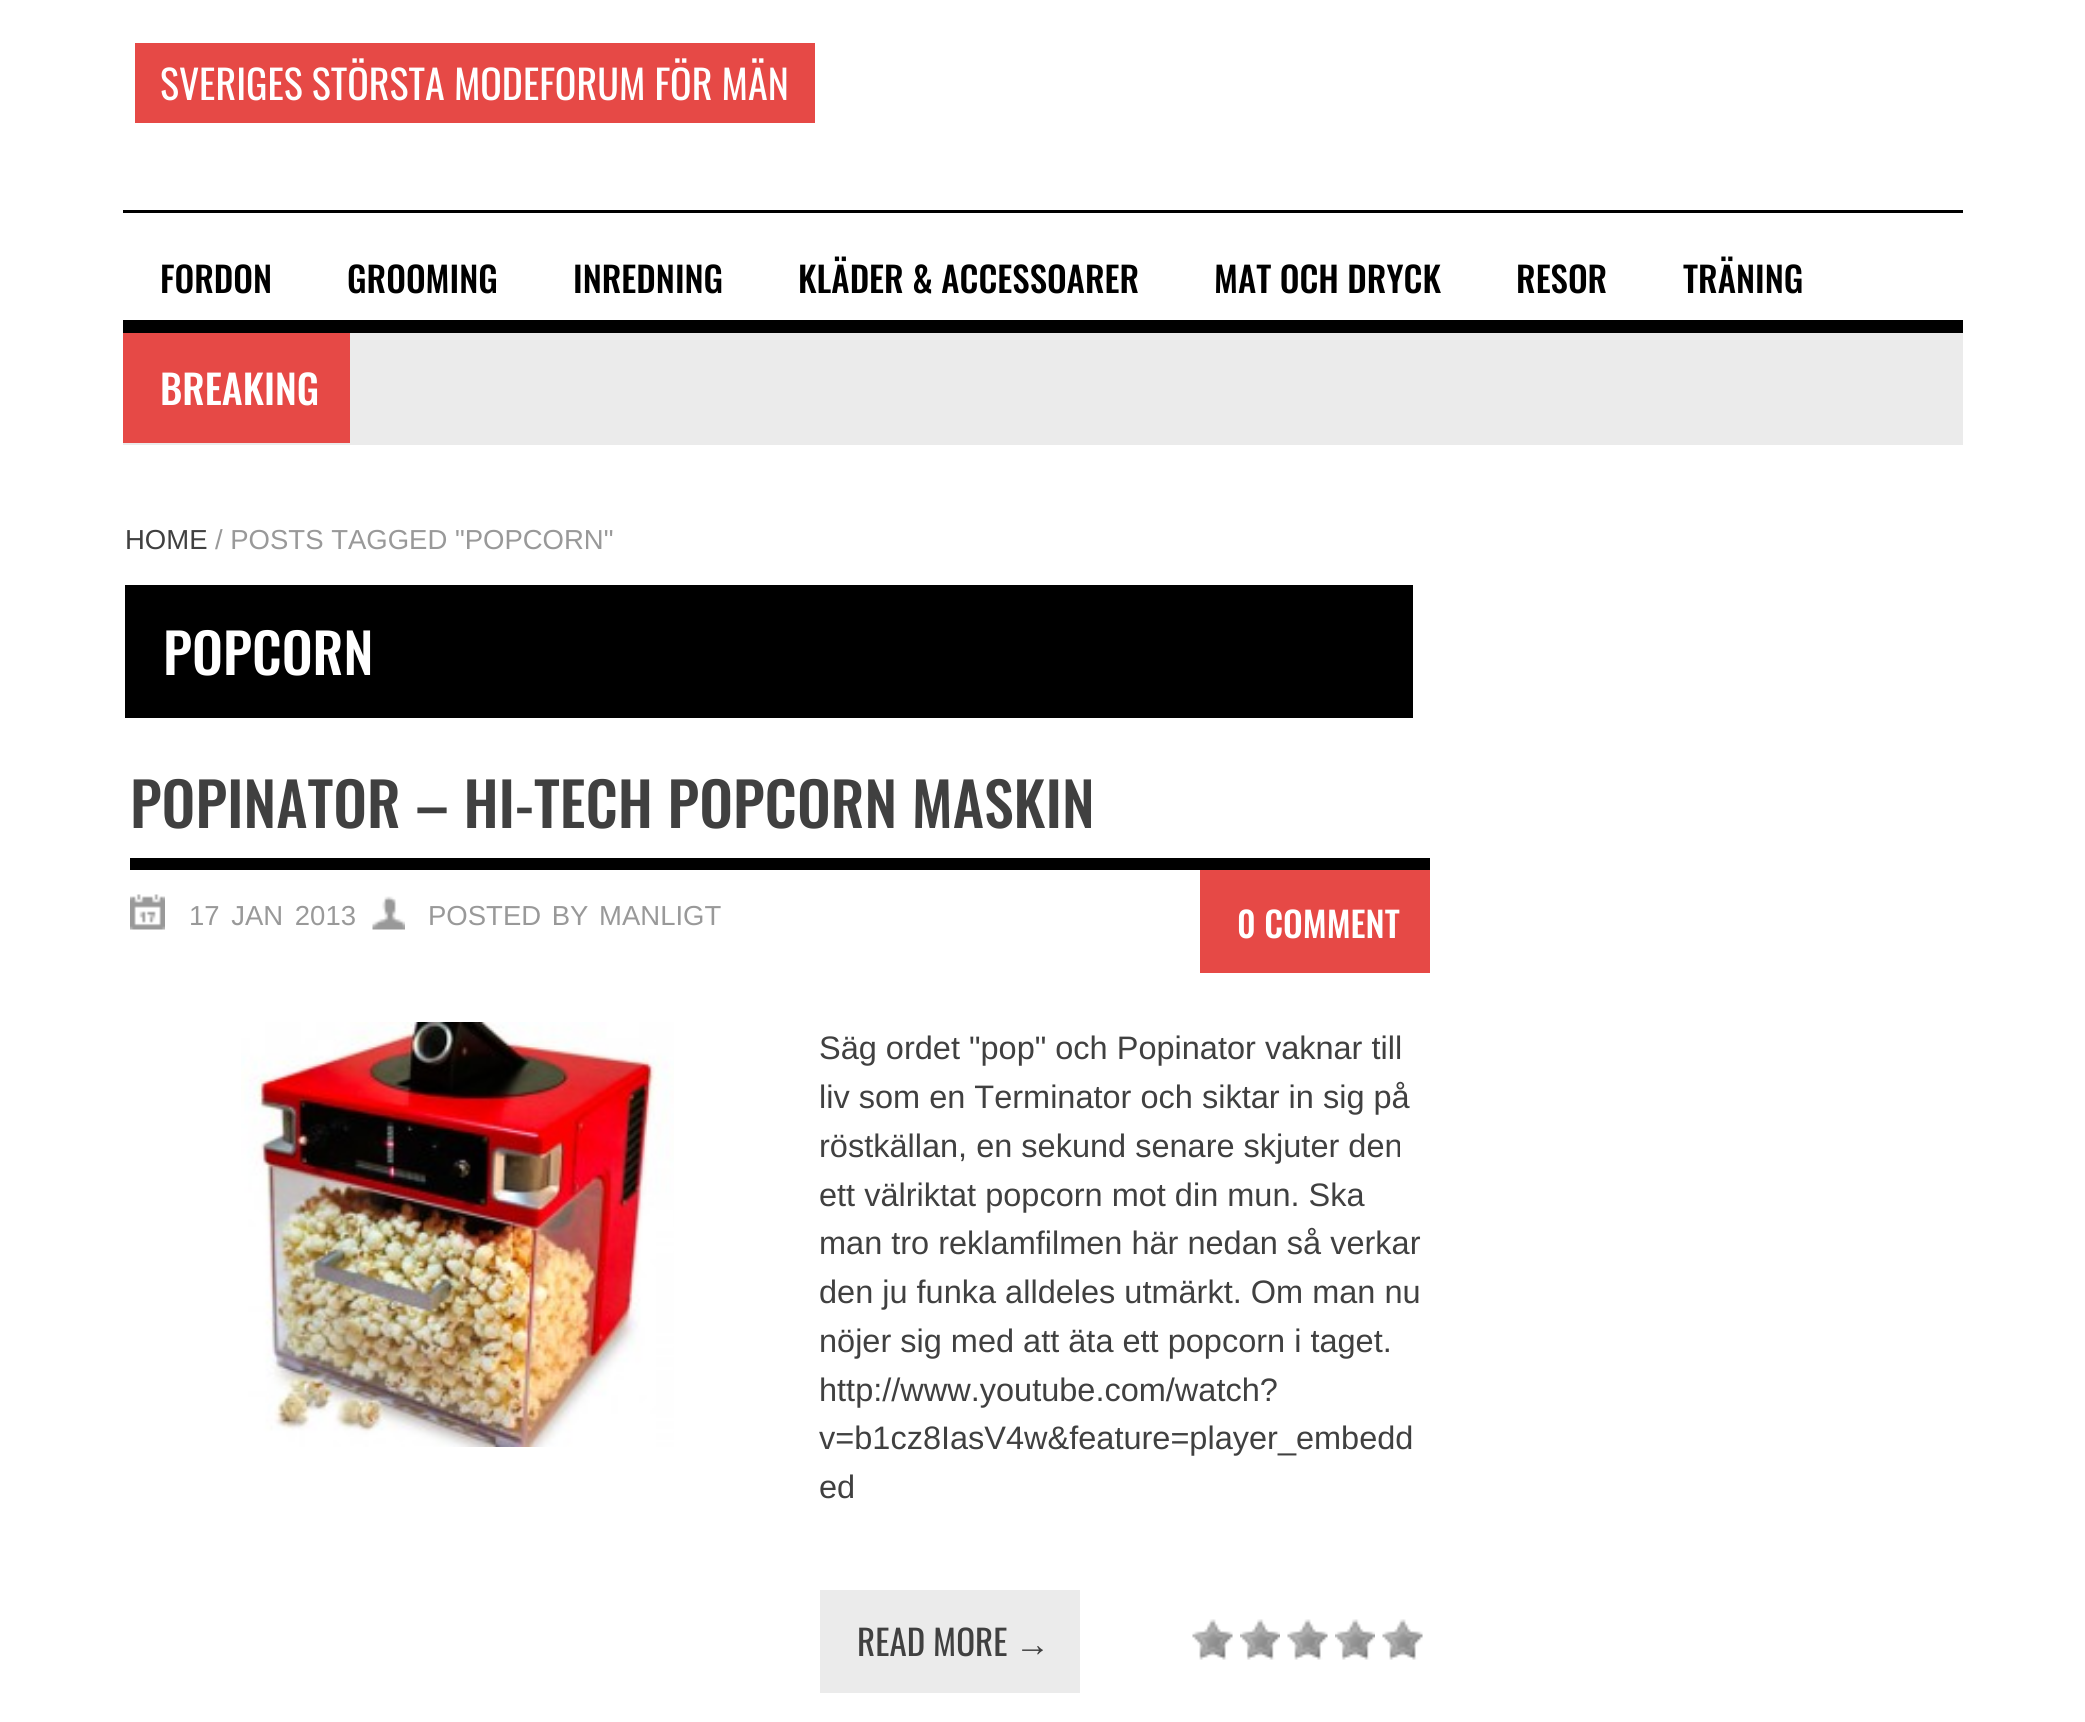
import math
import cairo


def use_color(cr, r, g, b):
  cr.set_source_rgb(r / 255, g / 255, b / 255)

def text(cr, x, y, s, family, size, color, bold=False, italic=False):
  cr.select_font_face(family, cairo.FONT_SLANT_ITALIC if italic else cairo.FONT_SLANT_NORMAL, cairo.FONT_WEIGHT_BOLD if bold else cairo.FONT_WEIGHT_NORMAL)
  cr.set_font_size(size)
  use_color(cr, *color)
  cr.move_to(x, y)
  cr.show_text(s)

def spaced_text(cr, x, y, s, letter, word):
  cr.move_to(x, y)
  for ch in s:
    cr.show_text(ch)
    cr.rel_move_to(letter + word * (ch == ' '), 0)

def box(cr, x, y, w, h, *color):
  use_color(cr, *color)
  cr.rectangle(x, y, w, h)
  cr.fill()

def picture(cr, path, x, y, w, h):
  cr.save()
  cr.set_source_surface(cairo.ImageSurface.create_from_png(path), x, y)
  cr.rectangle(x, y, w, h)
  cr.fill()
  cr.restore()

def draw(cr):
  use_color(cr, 255, 255, 255)
  cr.paint()
  box(cr, 135, 43, 680, 80, 230, 73, 70)
  box(cr, 123, 210, 1840, 3, 0, 0, 0)
  box(cr, 123, 320, 1840, 13, 0, 0, 0)
  box(cr, 123, 333, 1840, 112, 235, 235, 235)
  box(cr, 123, 333, 227, 110, 230, 73, 70)
  box(cr, 125, 585, 1288, 133, 0, 0, 0)
  box(cr, 130, 858, 1300, 12, 0, 0, 0)
  picture(cr, "img_01.png", 130, 894, 35, 36)
  picture(cr, "img_02.png", 372, 896, 33, 34)
  box(cr, 1200, 870, 230, 103, 230, 73, 70)
  picture(cr, "img_03.png", 241, 1022, 433, 425)
  box(cr, 820, 1590, 260, 103, 235, 235, 235)
  picture(cr, "img_04.png", 1192, 1619, 41, 41)
  picture(cr, "img_05.png", 1240, 1619, 40, 41)
  picture(cr, "img_04.png", 1287, 1619, 41, 41)
  picture(cr, "img_06.png", 1335, 1619, 40, 41)
  picture(cr, "img_04.png", 1382, 1619, 41, 41)
  text(cr, 160, 100, "SVERIGES STÖRSTA MODEFORUM FÖR MÄN", "Oswald", 40, (255, 255, 255))
  text(cr, 160, 293, "FORDON", "Oswald Medium", 35, (0, 0, 0))
  text(cr, 347, 293, "GROOMING", "Oswald Medium", 35, (0, 0, 0))
  text(cr, 573, 293, "INREDNING", "Oswald Medium", 35, (0, 0, 0))
  text(cr, 798, 293, "KLÄDER & ACCESSOARER", "Oswald Medium", 35, (0, 0, 0))
  text(cr, 1214, 293, "MAT OCH DRYCK", "Oswald Medium", 35, (0, 0, 0))
  text(cr, 1516, 293, "RESOR", "Oswald Medium", 35, (0, 0, 0))
  text(cr, 1683, 293, "TRÄNING", "Oswald Medium", 35, (0, 0, 0))
  text(cr, 160, 405, "BREAKING", "Oswald Medium", 40, (255, 255, 255))
  text(cr, 125, 549, "HOME", "Liberation Sans", 27.5, (64, 64, 64))
  text(cr, 215, 549, "/ POSTS TAGGED \"POPCORN\"", "Liberation Sans", 27.5, (153, 153, 153))
  text(cr, 163, 675, "POPCORN", "Oswald Medium", 55, (255, 255, 255))
  text(cr, 130, 828, "POPINATOR – HI-TECH POPCORN MASKIN", "Oswald Medium", 60, (64, 64, 64))
  cr.select_font_face("Liberation Sans")
  cr.set_font_size(27.5)
  use_color(cr, 153, 153, 153)
  spaced_text(cr, 189, 925, "17 JAN 2013", 0, 4)
  spaced_text(cr, 428, 925, "POSTED BY MANLIGT", 0, 3)
  text(cr, 1237, 938, "0 COMMENT", "Oswald Medium", 35, (255, 255, 255))
  text(cr, 819, 1059, "Säg ordet \"pop\" och Popinator vaknar till", "Liberation Sans", 32.5, (64, 64, 64))
  text(cr, 819, 1108, "liv som en Terminator och siktar in sig på", "Liberation Sans", 32.5, (64, 64, 64))
  text(cr, 819, 1157, "röstkällan, en sekund senare skjuter den", "Liberation Sans", 32.5, (64, 64, 64))
  text(cr, 819, 1206, "ett välriktat popcorn mot din mun. Ska", "Liberation Sans", 32.5, (64, 64, 64))
  text(cr, 819, 1254, "man tro reklamfilmen här nedan så verkar", "Liberation Sans", 32.5, (64, 64, 64))
  text(cr, 819, 1303, "den ju funka alldeles utmärkt. Om man nu", "Liberation Sans", 32.5, (64, 64, 64))
  text(cr, 819, 1352, "nöjer sig med att äta ett popcorn i taget.", "Liberation Sans", 32.5, (64, 64, 64))
  text(cr, 819, 1401, "http://www.youtube.com/watch?", "Liberation Sans", 32.5, (64, 64, 64))
  text(cr, 819, 1449, "v=b1cz8IasV4w&feature=player_embedd", "Liberation Sans", 32.5, (64, 64, 64))
  text(cr, 819, 1498, "ed", "Liberation Sans", 32.5, (64, 64, 64))
  text(cr, 857, 1656, "READ MORE", "Oswald", 35, (64, 64, 64))
  text(cr, 1015, 1656, "→", "Liberation Serif", 35, (64, 64, 64))


surface = cairo.ImageSurface(cairo.FORMAT_RGB24, 2085, 1722)
cr = cairo.Context(surface)
options = cairo.FontOptions()
options.set_hint_metrics(cairo.HINT_METRICS_OFF)
options.set_hint_style(cairo.HINT_STYLE_NONE)
cr.set_font_options(options)
cr.set_miter_limit(4)
draw(cr)
surface.write_to_png("out.png")
